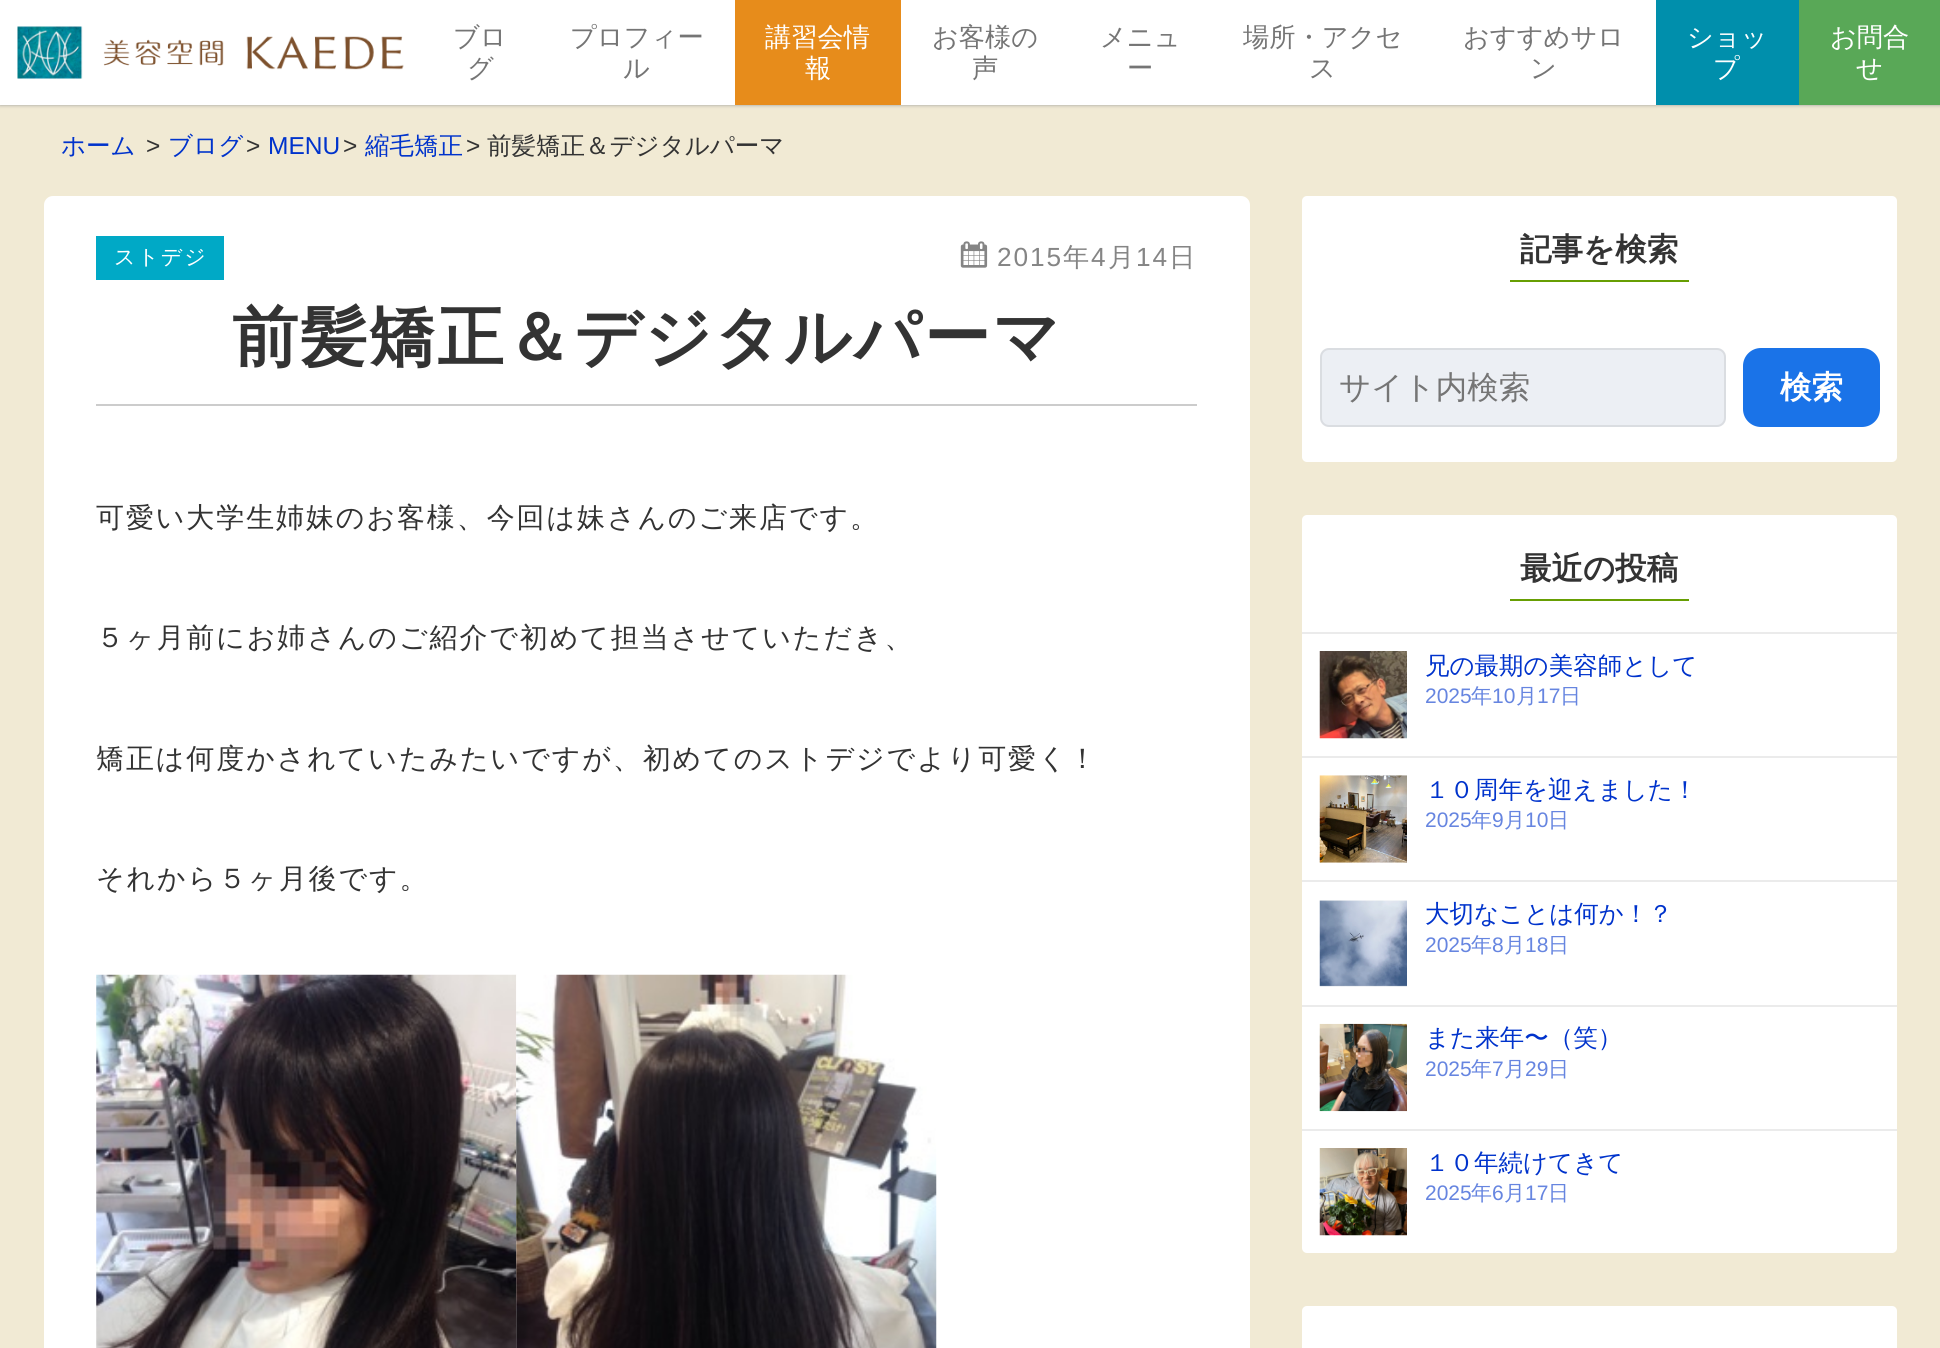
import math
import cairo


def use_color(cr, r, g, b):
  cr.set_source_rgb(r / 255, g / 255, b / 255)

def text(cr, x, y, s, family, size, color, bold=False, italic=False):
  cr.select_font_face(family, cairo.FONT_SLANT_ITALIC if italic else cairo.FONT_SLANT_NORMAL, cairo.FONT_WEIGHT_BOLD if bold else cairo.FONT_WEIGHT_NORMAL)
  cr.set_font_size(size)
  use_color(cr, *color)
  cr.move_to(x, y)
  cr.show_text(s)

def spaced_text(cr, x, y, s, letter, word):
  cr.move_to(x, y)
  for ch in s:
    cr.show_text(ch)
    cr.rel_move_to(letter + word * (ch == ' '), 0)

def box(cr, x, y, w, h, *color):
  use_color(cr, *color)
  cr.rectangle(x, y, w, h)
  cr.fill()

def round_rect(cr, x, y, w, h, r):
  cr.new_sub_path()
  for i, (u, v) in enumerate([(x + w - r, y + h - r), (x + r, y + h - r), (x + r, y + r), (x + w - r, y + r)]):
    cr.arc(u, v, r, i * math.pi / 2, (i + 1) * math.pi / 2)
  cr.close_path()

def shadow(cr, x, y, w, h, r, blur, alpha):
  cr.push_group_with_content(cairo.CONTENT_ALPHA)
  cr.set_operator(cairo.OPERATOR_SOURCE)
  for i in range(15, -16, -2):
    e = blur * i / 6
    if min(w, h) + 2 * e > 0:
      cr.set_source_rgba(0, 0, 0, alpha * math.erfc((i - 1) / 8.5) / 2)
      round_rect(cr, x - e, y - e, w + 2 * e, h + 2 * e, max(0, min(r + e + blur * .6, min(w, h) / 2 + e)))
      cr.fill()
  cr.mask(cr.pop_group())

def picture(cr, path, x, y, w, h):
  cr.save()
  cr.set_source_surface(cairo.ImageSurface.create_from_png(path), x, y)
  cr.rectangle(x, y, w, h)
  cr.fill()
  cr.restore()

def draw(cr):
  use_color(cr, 241, 234, 212)
  cr.paint()
  use_color(cr, 153, 153, 153)
  shadow(cr, 0, 0, 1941, 105, 0, 2, 1)
  box(cr, 0, 0, 1656, 105, 255, 255, 255)
  picture(cr, "img_01.png", 17, 26, 387, 53)
  box(cr, 735, 0, 166, 105, 231, 140, 27)
  box(cr, 1656, 0, 143, 105, 0, 143, 172)
  box(cr, 1799, 0, 141, 105, 89, 168, 87)
  use_color(cr, 255, 255, 255)
  round_rect(cr, 44, 196, 1206, 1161, 9)
  cr.fill()
  box(cr, 96, 236, 128, 44, 0, 169, 198)
  picture(cr, "img_02.png", 960, 241, 28, 27)
  box(cr, 96, 404, 1101, 2, 204, 204, 204)
  picture(cr, "img_03.png", 96, 974, 421, 374)
  picture(cr, "img_04.png", 516, 974, 421, 374)
  use_color(cr, 255, 255, 255)
  round_rect(cr, 1302, 196, 595, 266, 5)
  cr.fill()
  box(cr, 1510, 280, 179, 2, 103, 158, 3)
  use_color(cr, 236, 239, 244)
  round_rect(cr, 1320, 348, 406, 79, 9)
  cr.fill()
  round_rect(cr, 1321, 349, 404, 77, 8)
  cr.set_source_rgba(0.2, 0.2, 0.2, 0.1)
  cr.stroke()
  use_color(cr, 26, 115, 232)
  round_rect(cr, 1743, 348, 137, 79, 18)
  cr.fill()
  use_color(cr, 255, 255, 255)
  round_rect(cr, 1302, 515, 595, 738, 5)
  cr.fill()
  box(cr, 1510, 599, 179, 2, 103, 158, 3)
  box(cr, 1302, 632, 595, 2, 235, 235, 235)
  picture(cr, "img_05.png", 1319, 651, 88, 88)
  box(cr, 1302, 756, 595, 2, 235, 235, 235)
  picture(cr, "img_06.png", 1319, 775, 88, 88)
  box(cr, 1302, 880, 595, 2, 235, 235, 235)
  picture(cr, "img_07.png", 1319, 900, 88, 87)
  box(cr, 1302, 1005, 595, 2, 235, 235, 235)
  picture(cr, "img_08.png", 1319, 1023, 88, 89)
  box(cr, 1302, 1129, 595, 2, 235, 235, 235)
  picture(cr, "img_09.png", 1319, 1148, 88, 88)
  use_color(cr, 255, 255, 255)
  round_rect(cr, 1302, 1306, 595, 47, 5)
  cr.fill()
  text(cr, 453, 46, "ブロ", "WenQuanYi Zen Hei Medium", 26.25, (117, 117, 117))
  text(cr, 467, 77, "グ", "WenQuanYi Zen Hei Medium", 26.25, (117, 117, 117))
  text(cr, 570, 46, "プロフィー", "WenQuanYi Zen Hei Medium", 26.25, (117, 117, 117))
  text(cr, 623, 77, "ル", "WenQuanYi Zen Hei Medium", 26.25, (117, 117, 117))
  text(cr, 765, 46, "講習会情", "WenQuanYi Zen Hei Medium", 26.25, (255, 255, 255))
  text(cr, 805, 77, "報", "WenQuanYi Zen Hei Medium", 26.25, (255, 255, 255))
  text(cr, 932, 46, "お客様の", "WenQuanYi Zen Hei Medium", 26.25, (117, 117, 117))
  text(cr, 972, 77, "声", "WenQuanYi Zen Hei Medium", 26.25, (117, 117, 117))
  text(cr, 1100, 46, "メニュ", "WenQuanYi Zen Hei Medium", 26.25, (117, 117, 117))
  text(cr, 1127, 77, "ー", "WenQuanYi Zen Hei Medium", 26.25, (117, 117, 117))
  text(cr, 1243, 46, "場所・アクセ", "WenQuanYi Zen Hei Medium", 26.25, (117, 117, 117))
  text(cr, 1309, 77, "ス", "WenQuanYi Zen Hei Medium", 26.25, (117, 117, 117))
  text(cr, 1463, 46, "おすすめサロ", "WenQuanYi Zen Hei Medium", 26.25, (117, 117, 117))
  text(cr, 1530, 77, "ン", "WenQuanYi Zen Hei Medium", 26.25, (117, 117, 117))
  text(cr, 1687, 46, "ショッ", "WenQuanYi Zen Hei Medium", 26.25, (255, 255, 255))
  text(cr, 1713, 77, "プ", "WenQuanYi Zen Hei Medium", 26.25, (255, 255, 255))
  text(cr, 1830, 46, "お問合", "WenQuanYi Zen Hei Medium", 26.25, (255, 255, 255))
  text(cr, 1856, 77, "せ", "WenQuanYi Zen Hei Medium", 26.25, (255, 255, 255))
  text(cr, 61, 154, "ホーム", "WenQuanYi Zen Hei Medium", 24.5, (0, 51, 204))
  text(cr, 146, 154, ">", "Liberation Sans", 24.5, (51, 51, 51))
  text(cr, 168, 154, "ブログ", "WenQuanYi Zen Hei Medium", 24.5, (0, 51, 204))
  text(cr, 246, 154, ">", "Liberation Sans", 24.5, (51, 51, 51))
  text(cr, 268, 154, "MENU", "Liberation Sans", 24.5, (0, 51, 204))
  text(cr, 343, 154, ">", "Liberation Sans", 24.5, (51, 51, 51))
  text(cr, 365, 154, "縮毛矯正", "WenQuanYi Zen Hei Medium", 24.5, (0, 51, 204))
  text(cr, 466, 154, ">", "Liberation Sans", 24.5, (51, 51, 51))
  text(cr, 487, 154, "前髪矯正＆デジタルパーマ", "WenQuanYi Zen Hei Medium", 24.5, (51, 51, 51))
  cr.set_font_size(21)
  use_color(cr, 255, 255, 255)
  spaced_text(cr, 114, 264, "ストデジ", 1.9, 0)
  cr.select_font_face("Liberation Sans")
  cr.set_font_size(26.25)
  use_color(cr, 133, 133, 133)
  spaced_text(cr, 997, 266, "2015", 1.9, 0)
  cr.select_font_face("WenQuanYi Zen Hei Medium")
  spaced_text(cr, 1063, 266, "年", 1.9, 0)
  cr.select_font_face("Liberation Sans")
  spaced_text(cr, 1091, 266, "4", 1.9, 0)
  cr.select_font_face("WenQuanYi Zen Hei Medium")
  spaced_text(cr, 1108, 266, "月", 1.9, 0)
  cr.select_font_face("Liberation Sans")
  spaced_text(cr, 1136, 266, "14", 1.9, 0)
  cr.select_font_face("WenQuanYi Zen Hei Medium")
  spaced_text(cr, 1169, 266, "日", 1.9, 0)
  cr.select_font_face("WenQuanYi Zen Hei", cairo.FONT_SLANT_NORMAL, cairo.FONT_WEIGHT_BOLD)
  cr.set_font_size(66.5)
  use_color(cr, 51, 51, 51)
  spaced_text(cr, 232, 360, "前髪矯正＆デジタルパーマ", 1.9, 0)
  cr.select_font_face("WenQuanYi Zen Hei Medium")
  cr.set_font_size(28)
  spaced_text(cr, 96, 527, "可愛い大学生姉妹のお客様、今回は妹さんのご来店です。", 1.9, 0)
  spaced_text(cr, 96, 647, "５ヶ月前にお姉さんのご紹介で初めて担当させていただき、", 1.9, 0)
  spaced_text(cr, 96, 768, "矯正は何度かされていたみたいですが、初めてのストデジでより可愛く！", 1.9, 0)
  spaced_text(cr, 96, 888, "それから５ヶ月後です。", 1.9, 0)
  text(cr, 1520, 260, "記事を検索", "WenQuanYi Zen Hei", 31.5, (51, 51, 51), bold=True)
  text(cr, 1339, 398, "サイト内検索", "WenQuanYi Zen Hei Medium", 31.5, (117, 117, 117))
  text(cr, 1780, 398, "検索", "WenQuanYi Zen Hei", 31.5, (255, 255, 255), bold=True)
  text(cr, 1520, 579, "最近の投稿", "WenQuanYi Zen Hei", 31.5, (51, 51, 51), bold=True)
  text(cr, 1425, 674, "兄の最期の美容師として", "WenQuanYi Zen Hei Medium", 24.5, (0, 51, 204))
  text(cr, 1425, 703, "2025", "Liberation Sans", 21, (102, 133, 224))
  text(cr, 1471, 703, "年", "WenQuanYi Zen Hei Medium", 21, (102, 133, 224))
  text(cr, 1492, 703, "10", "Liberation Sans", 21, (102, 133, 224))
  text(cr, 1516, 703, "月", "WenQuanYi Zen Hei Medium", 21, (102, 133, 224))
  text(cr, 1537, 703, "17", "Liberation Sans", 21, (102, 133, 224))
  text(cr, 1560, 703, "日", "WenQuanYi Zen Hei Medium", 21, (102, 133, 224))
  text(cr, 1425, 798, "１０周年を迎えました！", "WenQuanYi Zen Hei Medium", 24.5, (0, 51, 204))
  text(cr, 1425, 827, "2025", "Liberation Sans", 21, (102, 133, 224))
  text(cr, 1471, 827, "年", "WenQuanYi Zen Hei Medium", 21, (102, 133, 224))
  text(cr, 1492, 827, "9", "Liberation Sans", 21, (102, 133, 224))
  text(cr, 1504, 827, "月", "WenQuanYi Zen Hei Medium", 21, (102, 133, 224))
  text(cr, 1525, 827, "10", "Liberation Sans", 21, (102, 133, 224))
  text(cr, 1548, 827, "日", "WenQuanYi Zen Hei Medium", 21, (102, 133, 224))
  text(cr, 1425, 922, "大切なことは何か！？", "WenQuanYi Zen Hei Medium", 24.5, (0, 51, 204))
  text(cr, 1425, 952, "2025", "Liberation Sans", 21, (102, 133, 224))
  text(cr, 1471, 952, "年", "WenQuanYi Zen Hei Medium", 21, (102, 133, 224))
  text(cr, 1492, 952, "8", "Liberation Sans", 21, (102, 133, 224))
  text(cr, 1504, 952, "月", "WenQuanYi Zen Hei Medium", 21, (102, 133, 224))
  text(cr, 1525, 952, "18", "Liberation Sans", 21, (102, 133, 224))
  text(cr, 1548, 952, "日", "WenQuanYi Zen Hei Medium", 21, (102, 133, 224))
  text(cr, 1425, 1046, "また来年〜（笑）", "WenQuanYi Zen Hei Medium", 24.5, (0, 51, 204))
  text(cr, 1425, 1076, "2025", "Liberation Sans", 21, (102, 133, 224))
  text(cr, 1471, 1076, "年", "WenQuanYi Zen Hei Medium", 21, (102, 133, 224))
  text(cr, 1492, 1076, "7", "Liberation Sans", 21, (102, 133, 224))
  text(cr, 1504, 1076, "月", "WenQuanYi Zen Hei Medium", 21, (102, 133, 224))
  text(cr, 1525, 1076, "29", "Liberation Sans", 21, (102, 133, 224))
  text(cr, 1548, 1076, "日", "WenQuanYi Zen Hei Medium", 21, (102, 133, 224))
  text(cr, 1425, 1171, "１０年続けてきて", "WenQuanYi Zen Hei Medium", 24.5, (0, 51, 204))
  text(cr, 1425, 1200, "2025", "Liberation Sans", 21, (102, 133, 224))
  text(cr, 1471, 1200, "年", "WenQuanYi Zen Hei Medium", 21, (102, 133, 224))
  text(cr, 1492, 1200, "6", "Liberation Sans", 21, (102, 133, 224))
  text(cr, 1504, 1200, "月", "WenQuanYi Zen Hei Medium", 21, (102, 133, 224))
  text(cr, 1525, 1200, "17", "Liberation Sans", 21, (102, 133, 224))
  text(cr, 1548, 1200, "日", "WenQuanYi Zen Hei Medium", 21, (102, 133, 224))


surface = cairo.ImageSurface(cairo.FORMAT_RGB24, 1940, 1348)
cr = cairo.Context(surface)
options = cairo.FontOptions()
options.set_hint_metrics(cairo.HINT_METRICS_OFF)
options.set_hint_style(cairo.HINT_STYLE_NONE)
cr.set_font_options(options)
cr.set_miter_limit(4)
draw(cr)
surface.write_to_png("out.png")
